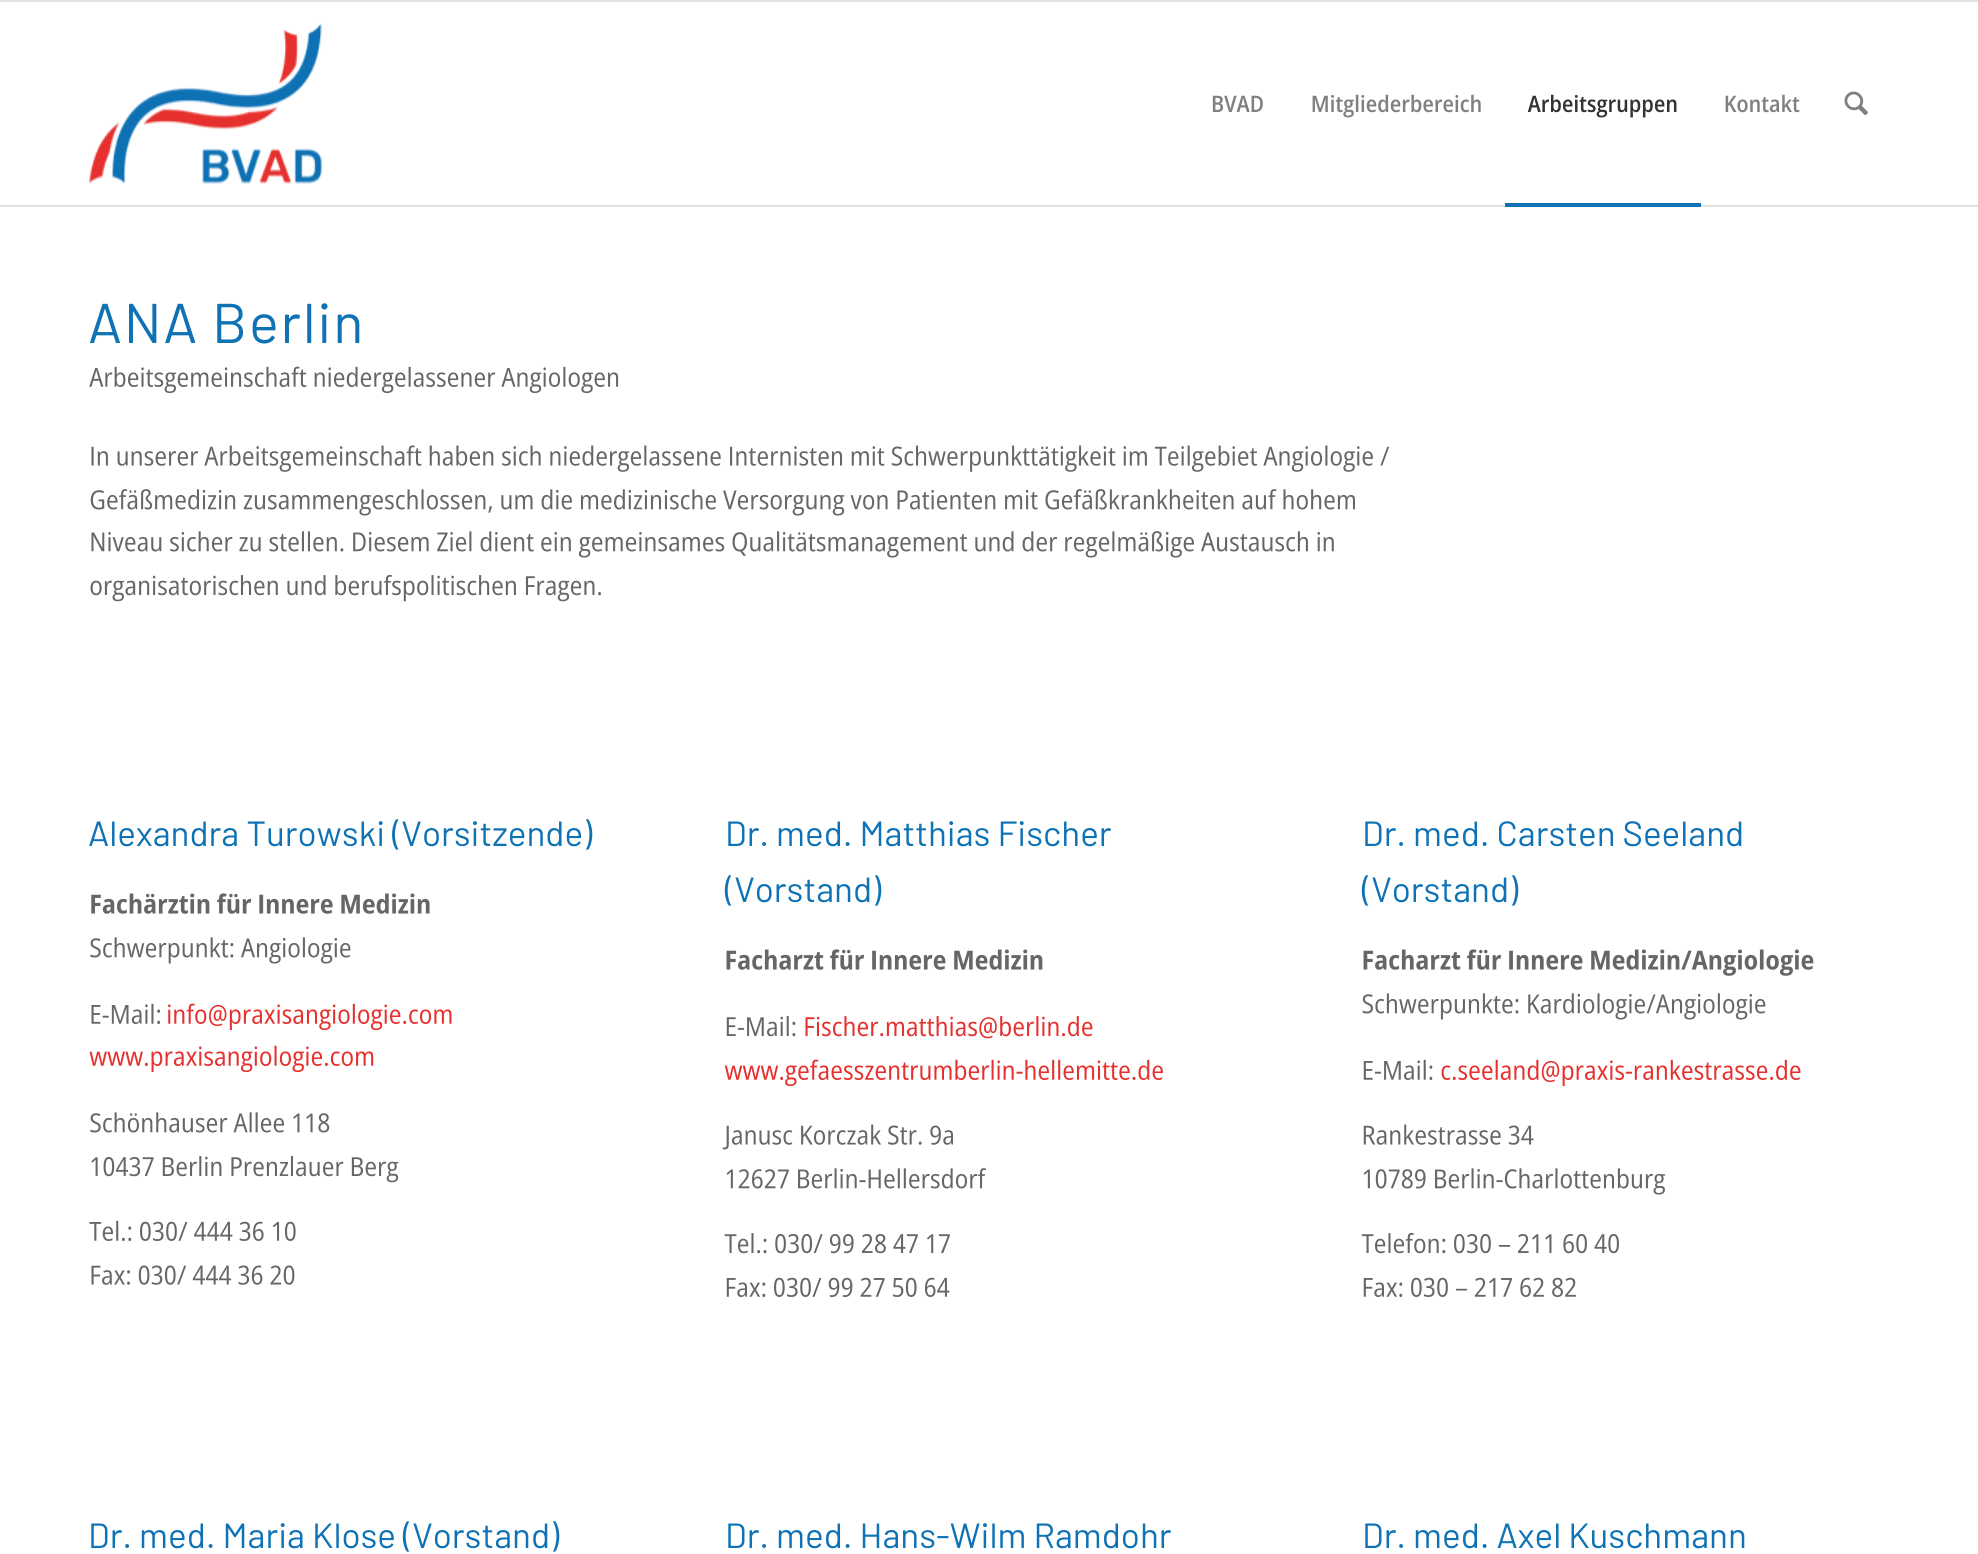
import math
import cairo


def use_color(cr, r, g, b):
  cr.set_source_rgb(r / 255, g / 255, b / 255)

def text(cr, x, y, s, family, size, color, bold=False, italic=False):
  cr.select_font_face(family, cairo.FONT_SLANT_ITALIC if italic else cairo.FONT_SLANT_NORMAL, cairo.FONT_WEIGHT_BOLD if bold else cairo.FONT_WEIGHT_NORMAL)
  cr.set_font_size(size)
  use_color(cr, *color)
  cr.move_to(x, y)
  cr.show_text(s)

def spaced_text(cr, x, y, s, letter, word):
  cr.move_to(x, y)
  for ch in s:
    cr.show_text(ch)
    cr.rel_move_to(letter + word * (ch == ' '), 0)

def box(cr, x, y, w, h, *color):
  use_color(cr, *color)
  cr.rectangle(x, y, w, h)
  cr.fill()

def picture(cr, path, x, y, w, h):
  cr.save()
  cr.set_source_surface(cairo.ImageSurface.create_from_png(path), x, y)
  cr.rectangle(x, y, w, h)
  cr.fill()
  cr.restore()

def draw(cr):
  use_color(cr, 255, 255, 255)
  cr.paint()
  box(cr, 0, 0, 1978, 2, 225, 225, 225)
  box(cr, 0, 205, 1978, 2, 225, 225, 225)
  picture(cr, "img_01.png", 89, 23, 233, 161)
  picture(cr, "img_02.png", 1212, 95, 51, 17)
  picture(cr, "img_03.png", 1312, 94, 169, 24)
  picture(cr, "img_04.png", 1527, 94, 150, 24)
  box(cr, 1505, 203, 196, 4, 14, 114, 180)
  picture(cr, "img_05.png", 1725, 94, 75, 19)
  picture(cr, "img_06.png", 1844, 91, 24, 25)
  picture(cr, "img_07.png", 89, 366, 530, 28)
  picture(cr, "img_08.png", 91, 445, 1299, 27)
  picture(cr, "img_09.png", 90, 489, 1265, 27)
  picture(cr, "img_10.png", 91, 531, 1243, 27)
  picture(cr, "img_11.png", 90, 574, 511, 28)
  picture(cr, "img_12.png", 91, 893, 339, 21)
  picture(cr, "img_13.png", 90, 937, 261, 27)
  picture(cr, "img_14.png", 91, 1003, 70, 21)
  picture(cr, "img_15.png", 168, 1003, 284, 28)
  picture(cr, "img_16.png", 89, 1045, 285, 28)
  picture(cr, "img_17.png", 90, 1112, 240, 21)
  picture(cr, "img_18.png", 91, 1156, 308, 27)
  picture(cr, "img_19.png", 89, 1220, 207, 21)
  picture(cr, "img_20.png", 91, 1265, 204, 20)
  picture(cr, "img_21.png", 726, 949, 317, 21)
  picture(cr, "img_22.png", 726, 1016, 70, 21)
  picture(cr, "img_23.png", 805, 1016, 288, 23)
  picture(cr, "img_24.png", 724, 1059, 439, 28)
  picture(cr, "img_25.png", 722, 1124, 231, 26)
  picture(cr, "img_26.png", 726, 1168, 261, 21)
  picture(cr, "img_27.png", 724, 1233, 226, 21)
  picture(cr, "img_28.png", 726, 1277, 224, 20)
  picture(cr, "img_29.png", 1363, 949, 451, 27)
  picture(cr, "img_30.png", 1362, 993, 404, 27)
  picture(cr, "img_31.png", 1363, 1059, 70, 21)
  picture(cr, "img_32.png", 1441, 1059, 360, 27)
  picture(cr, "img_33.png", 1363, 1124, 171, 21)
  picture(cr, "img_34.png", 1363, 1168, 303, 27)
  picture(cr, "img_35.png", 1361, 1232, 258, 22)
  picture(cr, "img_36.png", 1363, 1277, 213, 20)
  cr.select_font_face("Barlow")
  cr.set_font_size(56)
  spaced_text(cr, 88, 343, "ANA Berlin", 1.75, 0)
  text(cr, 88, 846, "Alexandra Turowski (Vorsitzende)", "Barlow", 35, (14, 114, 180))
  text(cr, 725, 846, "Dr. med. Matthias Fischer", "Barlow", 35, (14, 114, 180))
  text(cr, 725, 902, "(Vorstand)", "Barlow", 35, (14, 114, 180))
  text(cr, 1362, 846, "Dr. med. Carsten Seeland", "Barlow", 35, (14, 114, 180))
  text(cr, 1362, 902, "(Vorstand)", "Barlow", 35, (14, 114, 180))
  text(cr, 88, 1548, "Dr. med. Maria Klose (Vorstand)", "Barlow", 35, (14, 114, 180))
  text(cr, 725, 1548, "Dr. med. Hans-Wilm Ramdohr", "Barlow", 35, (14, 114, 180))
  text(cr, 1362, 1548, "Dr. med. Axel Kuschmann", "Barlow", 35, (14, 114, 180))


surface = cairo.ImageSurface(cairo.FORMAT_RGB24, 1978, 1554)
cr = cairo.Context(surface)
options = cairo.FontOptions()
options.set_hint_metrics(cairo.HINT_METRICS_OFF)
options.set_hint_style(cairo.HINT_STYLE_NONE)
cr.set_font_options(options)
cr.set_miter_limit(4)
draw(cr)
surface.write_to_png("out.png")
